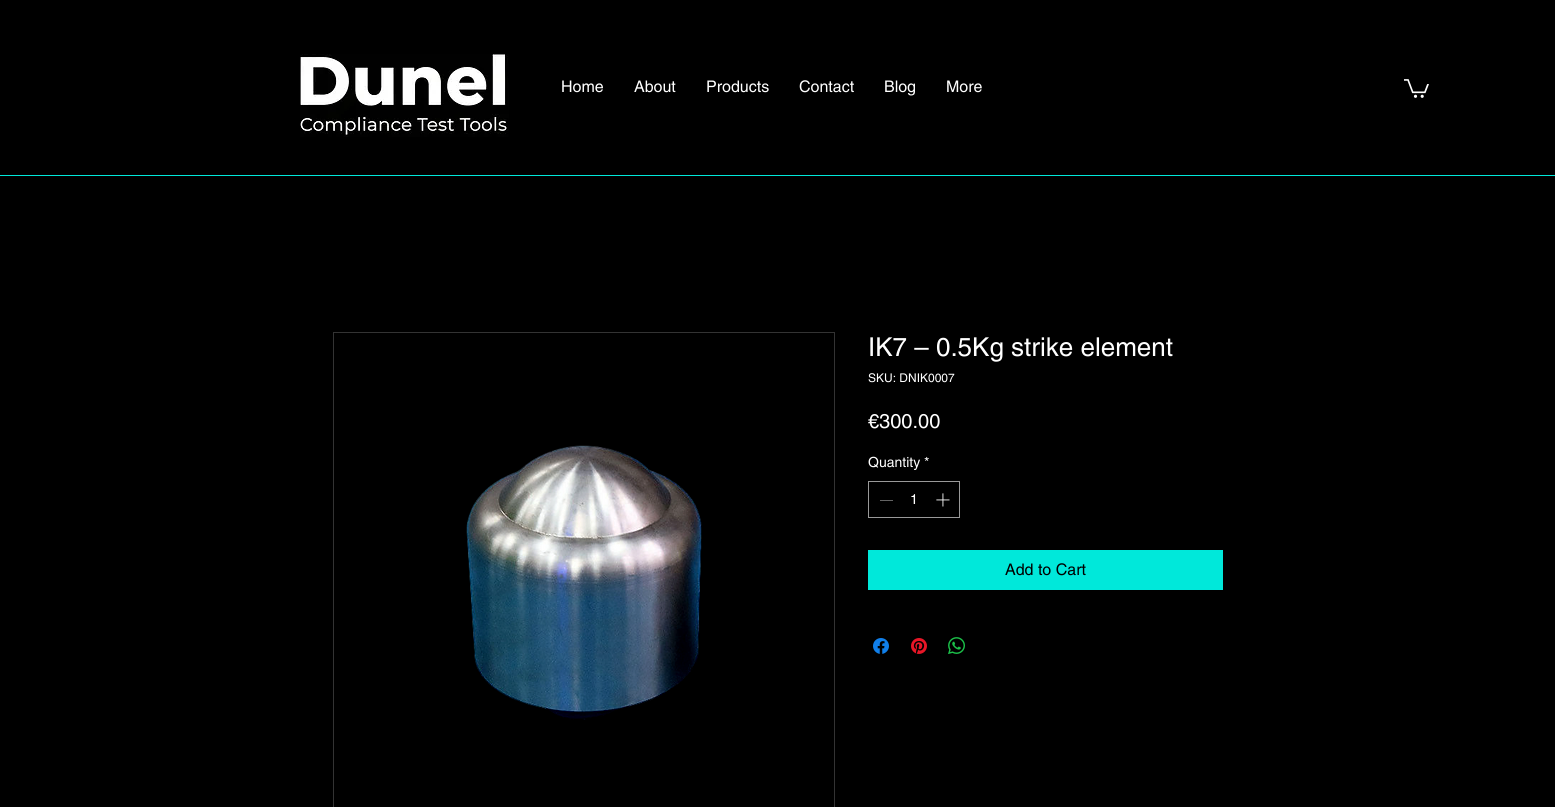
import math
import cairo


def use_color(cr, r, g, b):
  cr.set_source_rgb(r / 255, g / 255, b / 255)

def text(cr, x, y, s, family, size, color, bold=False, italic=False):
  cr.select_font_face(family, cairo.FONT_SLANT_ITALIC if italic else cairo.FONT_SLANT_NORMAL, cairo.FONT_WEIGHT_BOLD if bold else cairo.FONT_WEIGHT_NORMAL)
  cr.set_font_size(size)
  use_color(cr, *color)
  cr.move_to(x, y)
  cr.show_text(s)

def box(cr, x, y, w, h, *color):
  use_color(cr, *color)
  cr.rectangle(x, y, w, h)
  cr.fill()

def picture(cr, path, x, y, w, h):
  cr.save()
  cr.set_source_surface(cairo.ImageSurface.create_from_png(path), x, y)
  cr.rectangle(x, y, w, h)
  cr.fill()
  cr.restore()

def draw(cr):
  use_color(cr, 0, 0, 0)
  cr.paint()
  picture(cr, "img_01.png", 300, 54, 209, 83)
  picture(cr, "img_02.png", 1404, 79, 25, 19)
  box(cr, 0, 175, 1555, 1, 0, 232, 218)
  cr.rectangle(333.5, 332.5, 501, 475)
  use_color(cr, 51, 51, 51)
  cr.set_line_width(1)
  cr.stroke()
  picture(cr, "img_03.png", 466, 445, 236, 275)
  cr.rectangle(868.5, 481.5, 91, 36)
  use_color(cr, 153, 153, 153)
  cr.stroke()
  box(cr, 880, 500, 13, 1, 100, 100, 100)
  picture(cr, "img_04.png", 936, 493, 14, 14)
  box(cr, 868, 550, 355, 40, 0, 232, 218)
  picture(cr, "img_05.png", 873, 638, 16, 16)
  picture(cr, "img_06.png", 911, 638, 16, 16)
  picture(cr, "img_07.png", 948, 637, 17, 17)
  text(cr, 561, 92, "Home", "helvetica", 16, (255, 255, 255))
  text(cr, 634, 92, "About", "helvetica", 16, (255, 255, 255))
  text(cr, 706, 92, "Products", "helvetica", 16, (255, 255, 255))
  text(cr, 799, 92, "Contact", "helvetica", 16, (255, 255, 255))
  text(cr, 884, 92, "Blog", "helvetica", 16, (255, 255, 255))
  text(cr, 946, 92, "More", "helvetica", 16, (255, 255, 255))
  text(cr, 868, 356, "IK7 – 0.5Kg strike element", "helvetica", 26, (255, 255, 255))
  text(cr, 868, 382, "SKU: DNIK0007", "helvetica", 12, (255, 255, 255))
  text(cr, 868, 428, "€300.00", "helvetica", 20, (255, 255, 255))
  text(cr, 868, 467, "Quantity *", "helvetica", 14, (255, 255, 255))
  text(cr, 910, 504, "1", "helvetica", 14, (255, 255, 255))
  text(cr, 1005, 575, "Add to Cart", "helvetica", 16, (0, 0, 0))


surface = cairo.ImageSurface(cairo.FORMAT_RGB24, 1555, 807)
cr = cairo.Context(surface)
options = cairo.FontOptions()
options.set_hint_metrics(cairo.HINT_METRICS_OFF)
options.set_hint_style(cairo.HINT_STYLE_NONE)
cr.set_font_options(options)
cr.set_miter_limit(4)
draw(cr)
surface.write_to_png("out.png")
